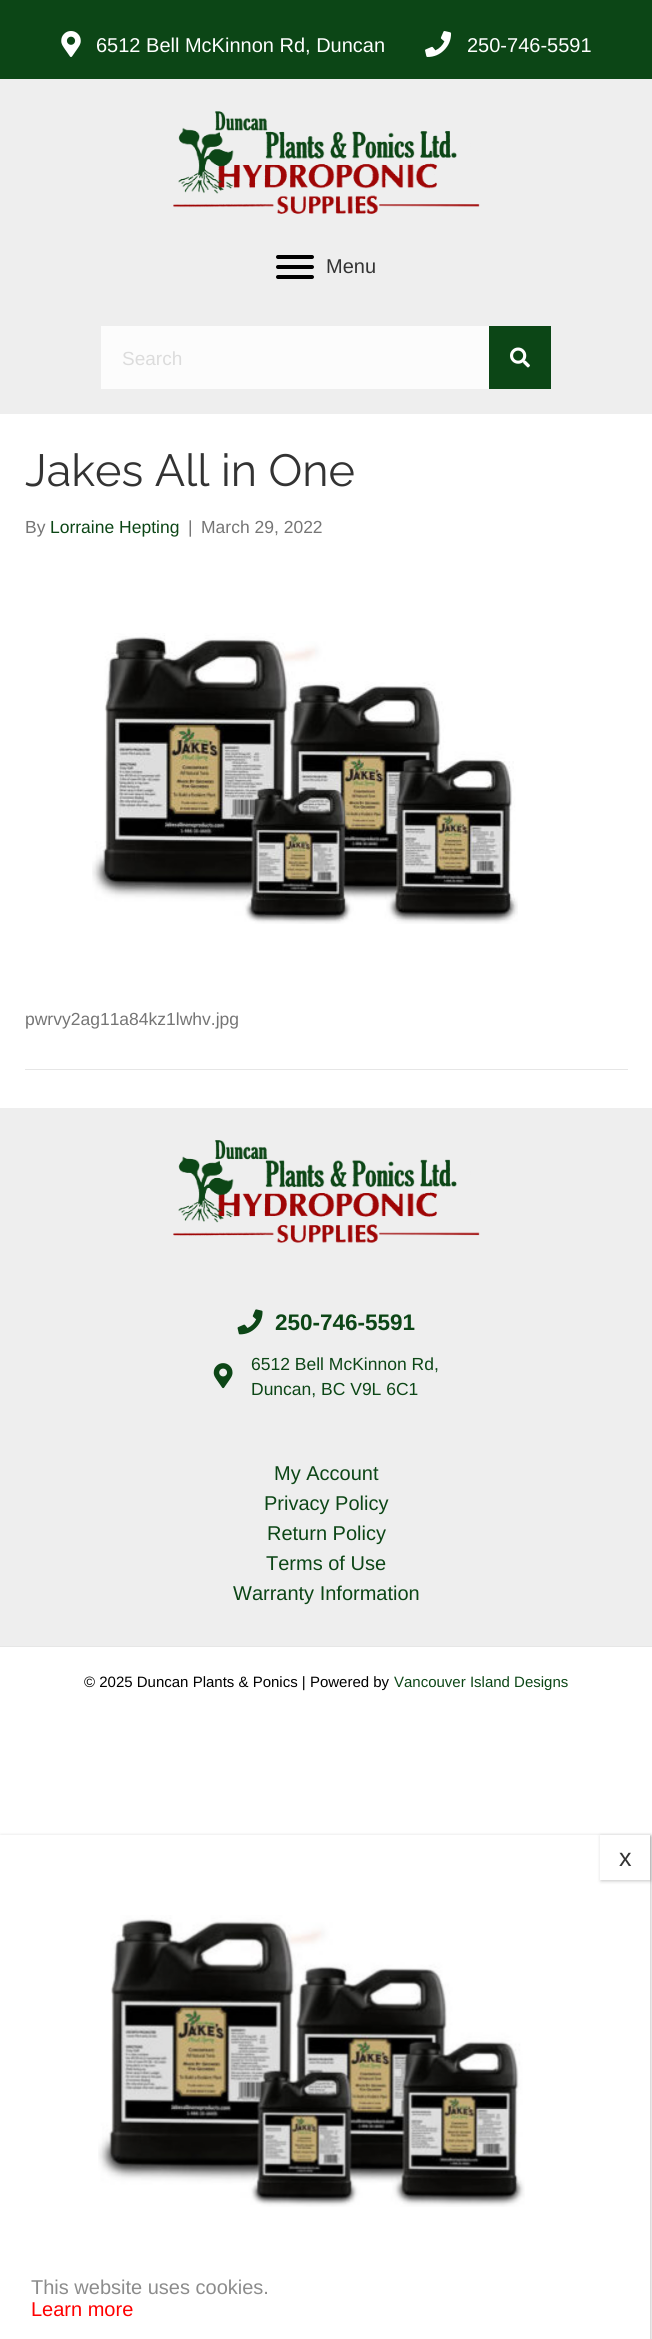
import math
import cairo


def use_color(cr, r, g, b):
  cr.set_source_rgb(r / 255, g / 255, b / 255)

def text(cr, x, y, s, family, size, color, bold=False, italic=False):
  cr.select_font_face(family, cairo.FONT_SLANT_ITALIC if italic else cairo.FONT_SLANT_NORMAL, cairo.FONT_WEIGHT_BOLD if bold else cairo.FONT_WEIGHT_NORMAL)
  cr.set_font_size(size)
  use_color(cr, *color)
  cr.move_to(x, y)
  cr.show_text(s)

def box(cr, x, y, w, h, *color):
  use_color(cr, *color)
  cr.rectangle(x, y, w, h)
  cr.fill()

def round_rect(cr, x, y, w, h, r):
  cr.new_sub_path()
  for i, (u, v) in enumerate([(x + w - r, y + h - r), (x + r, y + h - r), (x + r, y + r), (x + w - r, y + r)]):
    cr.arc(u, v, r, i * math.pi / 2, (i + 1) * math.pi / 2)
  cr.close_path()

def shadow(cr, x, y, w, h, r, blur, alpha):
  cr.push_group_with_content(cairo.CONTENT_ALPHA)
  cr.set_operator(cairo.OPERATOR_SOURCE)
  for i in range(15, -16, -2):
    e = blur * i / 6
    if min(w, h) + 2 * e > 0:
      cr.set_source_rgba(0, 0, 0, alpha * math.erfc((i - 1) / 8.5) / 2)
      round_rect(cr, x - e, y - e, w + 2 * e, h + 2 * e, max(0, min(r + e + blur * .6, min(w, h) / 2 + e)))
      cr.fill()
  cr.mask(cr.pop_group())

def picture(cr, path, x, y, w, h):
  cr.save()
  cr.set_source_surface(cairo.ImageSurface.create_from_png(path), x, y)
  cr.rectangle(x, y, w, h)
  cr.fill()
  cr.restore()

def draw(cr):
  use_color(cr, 255, 255, 255)
  cr.paint()
  box(cr, 0, 79, 652, 335, 238, 238, 238)
  box(cr, 0, 0, 652, 79, 12, 70, 22)
  picture(cr, "img_01.png", 61, 31, 20, 26)
  picture(cr, "img_02.png", 425, 31, 27, 26)
  picture(cr, "img_03.png", 173, 111, 307, 103)
  use_color(cr, 0, 0, 0)
  round_rect(cr, 276, 265, 38, 4, 2)
  cr.fill()
  round_rect(cr, 276, 255, 38, 4, 2)
  cr.fill()
  round_rect(cr, 276, 275, 38, 4, 2)
  cr.fill()
  box(cr, 101, 326, 388, 63, 252, 252, 252)
  box(cr, 489, 326, 62, 63, 12, 70, 22)
  picture(cr, "img_04.png", 510, 347, 20, 21)
  picture(cr, "img_05.png", 92, 633, 426, 291)
  box(cr, 25, 1069, 603, 1, 230, 230, 230)
  box(cr, 0, 1108, 652, 538, 238, 238, 238)
  picture(cr, "img_06.png", 173, 1140, 307, 103)
  picture(cr, "img_07.png", 237, 1309, 26, 26)
  picture(cr, "img_08.png", 213, 1363, 20, 26)
  box(cr, 0, 1646, 652, 1, 230, 230, 230)
  cr.save()
  cr.set_fill_rule(cairo.FILL_RULE_EVEN_ODD)
  cr.new_path()
  cr.move_to(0, 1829)
  cr.line_to(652, 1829)
  cr.line_to(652, 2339)
  cr.line_to(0, 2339)
  cr.close_path()
  cr.move_to(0, 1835)
  cr.line_to(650, 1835)
  cr.line_to(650, 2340)
  cr.line_to(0, 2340)
  cr.close_path()
  cr.clip()
  use_color(cr, 2, 2, 2)
  shadow(cr, 1, 1836, 650, 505, 0, 2, 0.23)
  cr.restore()
  cr.save()
  cr.set_fill_rule(cairo.FILL_RULE_EVEN_ODD)
  cr.new_path()
  cr.move_to(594, 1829)
  cr.line_to(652, 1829)
  cr.line_to(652, 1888)
  cr.line_to(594, 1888)
  cr.close_path()
  cr.move_to(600, 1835)
  cr.line_to(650, 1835)
  cr.line_to(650, 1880)
  cr.line_to(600, 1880)
  cr.close_path()
  cr.clip()
  use_color(cr, 2, 2, 2)
  shadow(cr, 601, 1836, 50, 45, 0, 2, 0.23)
  cr.restore()
  picture(cr, "img_09.png", 98, 1915, 427, 292)
  text(cr, 96, 52, "6512 Bell McKinnon Rd, Duncan", "Liberation Sans", 20, (255, 255, 255))
  text(cr, 467, 52, "250-746-5591", "Liberation Sans", 20, (255, 255, 255))
  text(cr, 326, 273, "Menu", "Liberation Sans", 20, (51, 51, 51))
  text(cr, 122, 365, "Search", "Liberation Sans", 19, (220, 220, 220))
  text(cr, 25, 486, "Jakes All in One", "Raleway Thin", 45, (51, 51, 51))
  text(cr, 25, 533, "By", "Liberation Sans", 17.5, (117, 117, 117))
  text(cr, 50, 533, "Lorraine Hepting", "Liberation Sans", 17.5, (12, 70, 22))
  text(cr, 188, 533, "|", "Liberation Sans", 17.5, (117, 117, 117))
  text(cr, 201, 533, "March 29, 2022", "Liberation Sans", 17.5, (117, 117, 117))
  text(cr, 25, 1025, "pwrvy2ag11a84kz1lwhv.jpg", "Liberation Sans", 17.5, (117, 117, 117))
  text(cr, 275, 1330, "250-746-5591", "Liberation Sans", 22.5, (12, 70, 22), bold=True)
  text(cr, 251, 1370, "6512 Bell McKinnon Rd,", "Liberation Sans", 17.5, (12, 70, 22))
  text(cr, 251, 1395, "Duncan, BC V9L 6C1", "Liberation Sans", 17.5, (12, 70, 22))
  text(cr, 274, 1480, "My Account", "Liberation Sans", 20, (12, 70, 22))
  text(cr, 264, 1510, "Privacy Policy", "Liberation Sans", 20, (12, 70, 22))
  text(cr, 267, 1540, "Return Policy", "Liberation Sans", 20, (12, 70, 22))
  text(cr, 266, 1570, "Terms of Use", "Liberation Sans", 20, (12, 70, 22))
  text(cr, 233, 1600, "Warranty Information", "Liberation Sans", 20, (12, 70, 22))
  text(cr, 84, 1687, "© 2025 Duncan Plants & Ponics | Powered by", "Liberation Sans", 15, (0, 0, 0))
  text(cr, 394, 1687, "Vancouver Island Designs", "Liberation Sans", 15, (12, 70, 22))
  text(cr, 619, 1866, "x", "Liberation Sans", 25, (51, 51, 51))
  text(cr, 31, 2294, "This website uses cookies.", "Liberation Sans", 20, (140, 140, 140))
  text(cr, 31, 2316, "Learn more", "Liberation Sans", 20, (255, 0, 0))


surface = cairo.ImageSurface(cairo.FORMAT_RGB24, 652, 2339)
cr = cairo.Context(surface)
options = cairo.FontOptions()
options.set_hint_metrics(cairo.HINT_METRICS_OFF)
options.set_hint_style(cairo.HINT_STYLE_NONE)
cr.set_font_options(options)
cr.set_miter_limit(4)
draw(cr)
surface.write_to_png("out.png")
